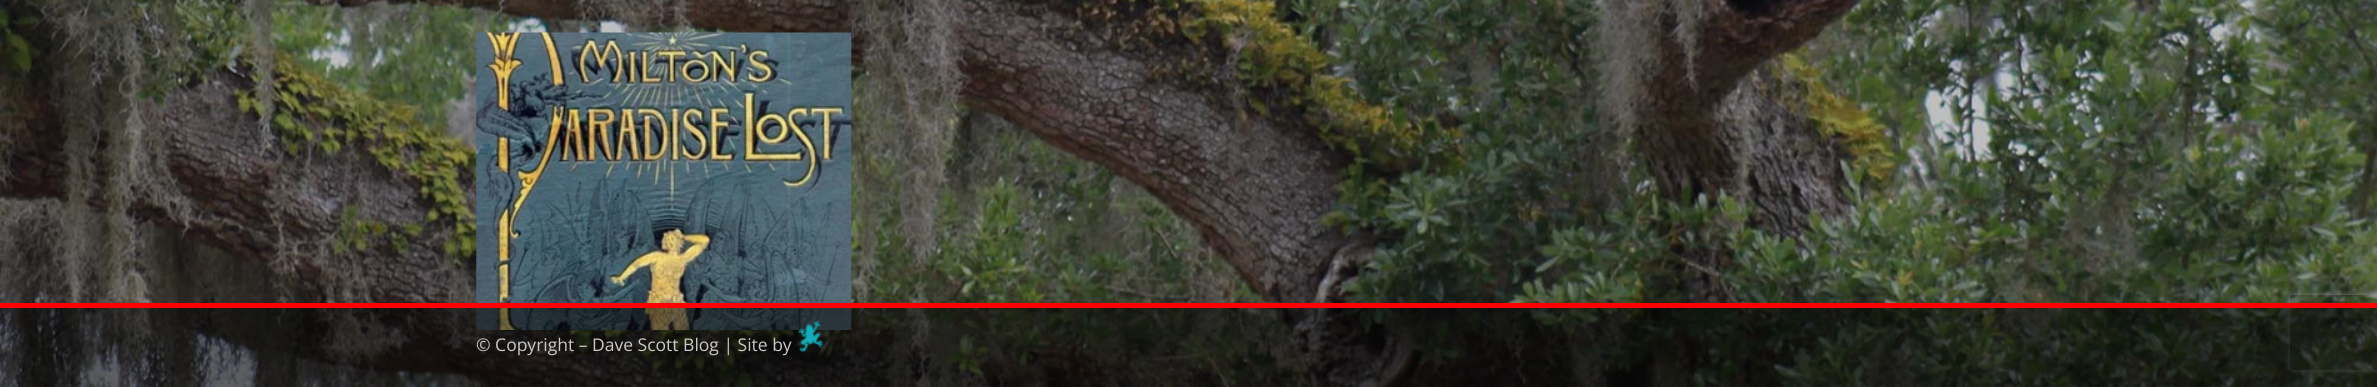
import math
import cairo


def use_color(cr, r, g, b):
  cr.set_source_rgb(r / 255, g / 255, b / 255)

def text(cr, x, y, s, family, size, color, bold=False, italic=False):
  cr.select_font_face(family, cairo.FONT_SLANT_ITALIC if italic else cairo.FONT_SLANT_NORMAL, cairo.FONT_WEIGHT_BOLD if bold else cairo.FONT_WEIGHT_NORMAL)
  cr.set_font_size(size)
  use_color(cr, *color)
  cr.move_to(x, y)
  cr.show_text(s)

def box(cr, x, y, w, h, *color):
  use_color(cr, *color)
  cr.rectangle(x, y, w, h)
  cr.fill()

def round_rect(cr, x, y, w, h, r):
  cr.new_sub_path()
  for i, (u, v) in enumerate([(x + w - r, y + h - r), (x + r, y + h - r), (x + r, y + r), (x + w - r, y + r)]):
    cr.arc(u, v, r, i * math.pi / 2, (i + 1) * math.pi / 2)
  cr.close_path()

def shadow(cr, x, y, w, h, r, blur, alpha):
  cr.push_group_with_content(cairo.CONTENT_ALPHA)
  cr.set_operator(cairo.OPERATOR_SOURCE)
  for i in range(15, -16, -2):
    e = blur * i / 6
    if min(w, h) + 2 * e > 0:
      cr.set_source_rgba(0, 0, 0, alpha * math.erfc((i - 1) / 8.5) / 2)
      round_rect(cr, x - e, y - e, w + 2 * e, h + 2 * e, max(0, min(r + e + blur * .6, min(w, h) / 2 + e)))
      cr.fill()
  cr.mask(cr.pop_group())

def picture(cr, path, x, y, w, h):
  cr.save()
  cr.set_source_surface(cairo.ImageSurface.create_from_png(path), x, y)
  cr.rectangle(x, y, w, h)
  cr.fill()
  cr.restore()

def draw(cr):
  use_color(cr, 255, 255, 255)
  cr.paint()
  picture(cr, "img_01.png", 0, 0, 2377, 387)
  picture(cr, "img_02.png", 476, 32, 376, 298)
  cr.save()
  cr.set_fill_rule(cairo.FILL_RULE_EVEN_ODD)
  cr.new_path()
  cr.move_to(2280, 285)
  cr.line_to(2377, 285)
  cr.line_to(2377, 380)
  cr.line_to(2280, 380)
  cr.close_path()
  cr.move_to(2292.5, 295)
  cr.line_to(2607.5, 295)
  cr.curve_to(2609, 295, 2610, 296, 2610, 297.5)
  cr.line_to(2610, 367.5)
  cr.curve_to(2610, 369, 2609, 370, 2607.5, 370)
  cr.line_to(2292.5, 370)
  cr.curve_to(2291, 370, 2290, 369, 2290, 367.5)
  cr.line_to(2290, 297.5)
  cr.curve_to(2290, 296, 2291, 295, 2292.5, 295)
  cr.close_path()
  cr.clip()
  use_color(cr, 128, 128, 128)
  shadow(cr, 2290, 295, 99, 75, 2.5, 3, 1)
  cr.restore()
  cr.set_source_rgba(0, 0, 0, 0.5)
  cr.rectangle(0, 308, 2377, 79)
  cr.fill()
  box(cr, 0, 303, 2377, 5, 255, 0, 0)
  picture(cr, "img_03.png", 798, 320, 26, 32)
  text(cr, 476, 351, "© Copyright – Dave Scott Blog | Site by", "Open Sans", 17.5, (204, 200, 200))


surface = cairo.ImageSurface(cairo.FORMAT_RGB24, 2377, 387)
cr = cairo.Context(surface)
options = cairo.FontOptions()
options.set_hint_metrics(cairo.HINT_METRICS_OFF)
options.set_hint_style(cairo.HINT_STYLE_NONE)
cr.set_font_options(options)
cr.set_miter_limit(4)
draw(cr)
surface.write_to_png("out.png")
